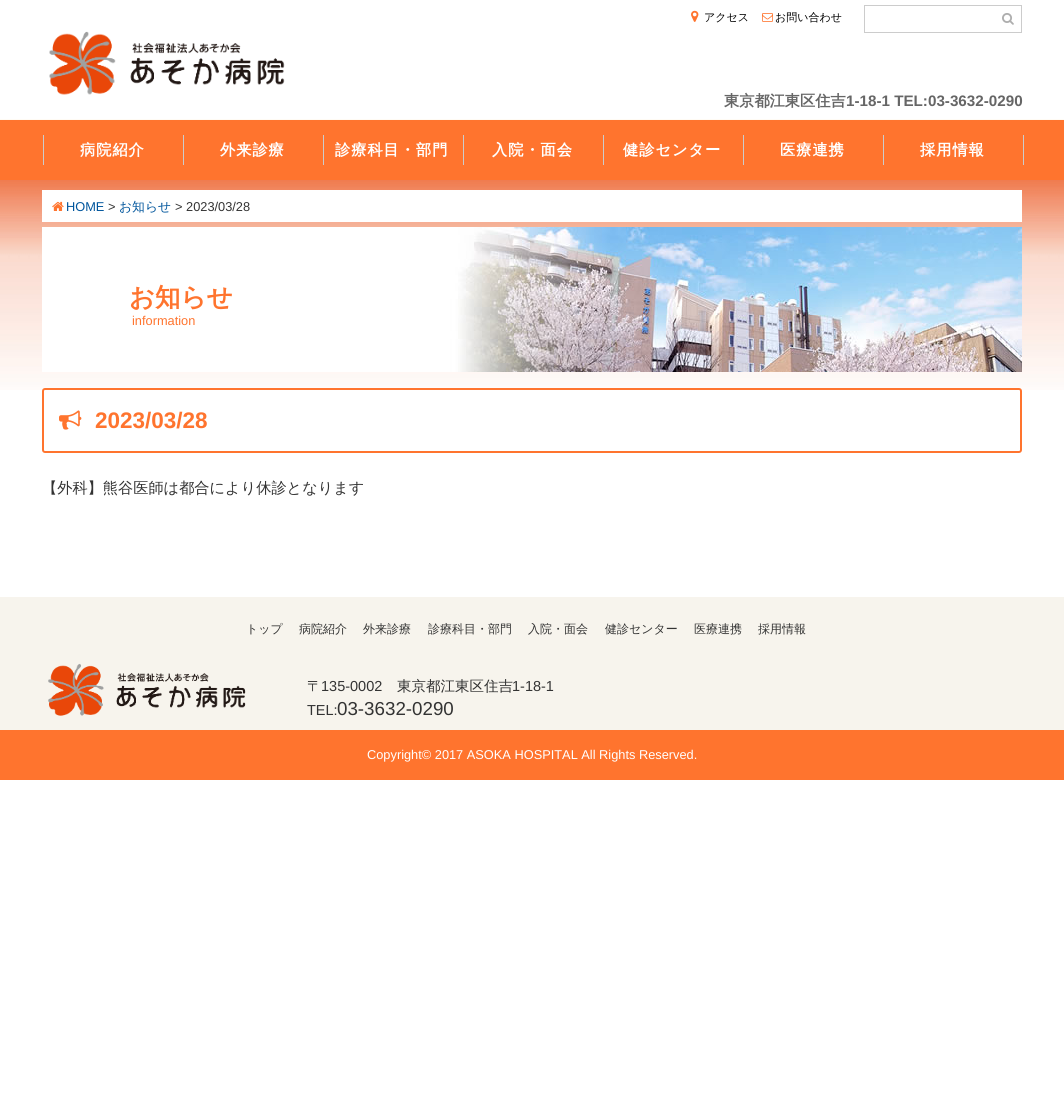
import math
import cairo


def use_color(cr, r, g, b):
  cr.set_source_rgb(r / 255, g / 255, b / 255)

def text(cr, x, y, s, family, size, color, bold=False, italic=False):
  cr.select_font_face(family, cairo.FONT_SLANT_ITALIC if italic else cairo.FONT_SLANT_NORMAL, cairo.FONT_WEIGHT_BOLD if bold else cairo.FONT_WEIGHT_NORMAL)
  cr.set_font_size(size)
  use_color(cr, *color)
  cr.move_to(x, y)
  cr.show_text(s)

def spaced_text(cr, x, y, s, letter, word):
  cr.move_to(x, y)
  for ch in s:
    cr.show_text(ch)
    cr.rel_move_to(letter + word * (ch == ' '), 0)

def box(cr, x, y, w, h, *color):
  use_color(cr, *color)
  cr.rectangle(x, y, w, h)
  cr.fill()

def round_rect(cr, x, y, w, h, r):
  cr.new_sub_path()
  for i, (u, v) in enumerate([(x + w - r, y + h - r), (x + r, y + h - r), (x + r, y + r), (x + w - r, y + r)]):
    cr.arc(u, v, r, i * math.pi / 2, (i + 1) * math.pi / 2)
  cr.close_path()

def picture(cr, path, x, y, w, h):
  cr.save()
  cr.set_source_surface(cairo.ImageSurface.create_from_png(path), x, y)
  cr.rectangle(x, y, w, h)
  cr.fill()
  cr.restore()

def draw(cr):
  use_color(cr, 255, 255, 255)
  cr.paint()
  picture(cr, "img_01.png", 0, 119, 1064, 271)
  picture(cr, "img_02.png", 691, 10, 8, 12)
  picture(cr, "img_03.png", 762, 13, 11, 9)
  cr.rectangle(864.5, 5.5, 157, 27)
  use_color(cr, 204, 204, 204)
  cr.set_line_width(1)
  cr.stroke()
  picture(cr, "img_04.png", 1002, 13, 12, 12)
  picture(cr, "img_05.png", 49, 31, 236, 64)
  box(cr, 0, 120, 1064, 60, 255, 116, 46)
  box(cr, 43, 135, 1, 30, 204, 204, 204)
  box(cr, 183, 135, 1, 30, 204, 204, 204)
  box(cr, 323, 135, 1, 30, 204, 204, 204)
  box(cr, 463, 135, 1, 30, 204, 204, 204)
  box(cr, 603, 135, 1, 30, 204, 204, 204)
  box(cr, 743, 135, 1, 30, 204, 204, 204)
  box(cr, 883, 135, 1, 30, 204, 204, 204)
  box(cr, 1023, 135, 1, 30, 204, 204, 204)
  box(cr, 42, 190, 980, 32, 255, 255, 255)
  picture(cr, "img_06.png", 52, 201, 12, 10)
  picture(cr, "img_07.png", 42, 227, 980, 145)
  round_rect(cr, 43, 389, 978, 63, 2)
  cr.fill_preserve()
  use_color(cr, 255, 116, 46)
  cr.set_line_width(2)
  cr.stroke()
  picture(cr, "img_08.png", 59, 410, 23, 20)
  box(cr, 0, 597, 1064, 133, 247, 244, 237)
  picture(cr, "img_09.png", 48, 663, 198, 53)
  box(cr, 0, 730, 1064, 50, 255, 116, 46)
  text(cr, 704, 21, "アクセス", "WenQuanYi Zen Hei Medium", 11, (0, 0, 0))
  text(cr, 775, 21, "お問い合わせ", "WenQuanYi Zen Hei Medium", 11, (0, 0, 0))
  text(cr, 724, 106, "東京都江東区住吉", "WenQuanYi Zen Hei", 15.2, (102, 102, 102), bold=True)
  text(cr, 846, 106, "1-18-1 TEL:03-3632-0290", "Liberation Sans", 15.2, (102, 102, 102), bold=True)
  cr.select_font_face("WenQuanYi Zen Hei", cairo.FONT_SLANT_NORMAL, cairo.FONT_WEIGHT_BOLD)
  use_color(cr, 255, 255, 255)
  spaced_text(cr, 80, 155, "病院紹介", 1, 0)
  spaced_text(cr, 220, 155, "外来診療", 1, 0)
  spaced_text(cr, 335, 155, "診療科目・部門", 1, 0)
  spaced_text(cr, 492, 155, "入院・面会", 1, 0)
  spaced_text(cr, 623, 155, "健診センター", 1, 0)
  spaced_text(cr, 780, 155, "医療連携", 1, 0)
  spaced_text(cr, 920, 155, "採用情報", 1, 0)
  text(cr, 66, 211, "HOME", "Liberation Sans", 12.8, (0, 85, 156))
  text(cr, 108, 211, ">", "Liberation Sans", 12.8, (51, 51, 51))
  text(cr, 119, 211, "お知らせ", "WenQuanYi Zen Hei Medium", 12.8, (0, 85, 156))
  text(cr, 175, 211, "> 2023/03/28", "Liberation Sans", 12.8, (51, 51, 51))
  text(cr, 129, 306, "お知らせ", "WenQuanYi Zen Hei", 25.5, (255, 116, 46), bold=True)
  text(cr, 132, 325, "information", "Liberation Sans", 12.8, (255, 116, 46))
  text(cr, 95, 428, "2023/03/28", "Liberation Sans", 22.5, (255, 116, 46), bold=True)
  text(cr, 42, 493, "【外科】熊谷医師は都合により休診となります", "WenQuanYi Zen Hei Medium", 15.2, (51, 51, 51))
  text(cr, 246, 633, "トップ", "WenQuanYi Zen Hei Medium", 12, (51, 51, 51))
  text(cr, 299, 633, "病院紹介", "WenQuanYi Zen Hei Medium", 12, (51, 51, 51))
  text(cr, 363, 633, "外来診療", "WenQuanYi Zen Hei Medium", 12, (51, 51, 51))
  text(cr, 428, 633, "診療科目・部門", "WenQuanYi Zen Hei Medium", 12, (51, 51, 51))
  text(cr, 528, 633, "入院・面会", "WenQuanYi Zen Hei Medium", 12, (51, 51, 51))
  text(cr, 605, 633, "健診センター", "WenQuanYi Zen Hei Medium", 12, (51, 51, 51))
  text(cr, 694, 633, "医療連携", "WenQuanYi Zen Hei Medium", 12, (51, 51, 51))
  text(cr, 758, 633, "採用情報", "WenQuanYi Zen Hei Medium", 12, (51, 51, 51))
  text(cr, 307, 691, "〒", "WenQuanYi Zen Hei Medium", 14.5, (51, 51, 51))
  text(cr, 321, 691, "135-0002", "Liberation Sans", 14.5, (51, 51, 51))
  text(cr, 397, 691, "東京都江東区住吉", "WenQuanYi Zen Hei Medium", 14.5, (51, 51, 51))
  text(cr, 512, 691, "1-18-1", "Liberation Sans", 14.5, (51, 51, 51))
  text(cr, 307, 715, "TEL:", "Liberation Sans", 14.5, (51, 51, 51))
  text(cr, 337, 715, "03-3632-0290", "Liberation Sans", 18.75, (51, 51, 51))
  text(cr, 367, 759, "Copyright© 2017 ASOKA HOSPITAL All Rights Reserved.", "Liberation Sans", 12.8, (255, 255, 255))


surface = cairo.ImageSurface(cairo.FORMAT_RGB24, 1064, 1113)
cr = cairo.Context(surface)
options = cairo.FontOptions()
options.set_hint_metrics(cairo.HINT_METRICS_OFF)
options.set_hint_style(cairo.HINT_STYLE_NONE)
cr.set_font_options(options)
cr.set_miter_limit(4)
draw(cr)
surface.write_to_png("out.png")
